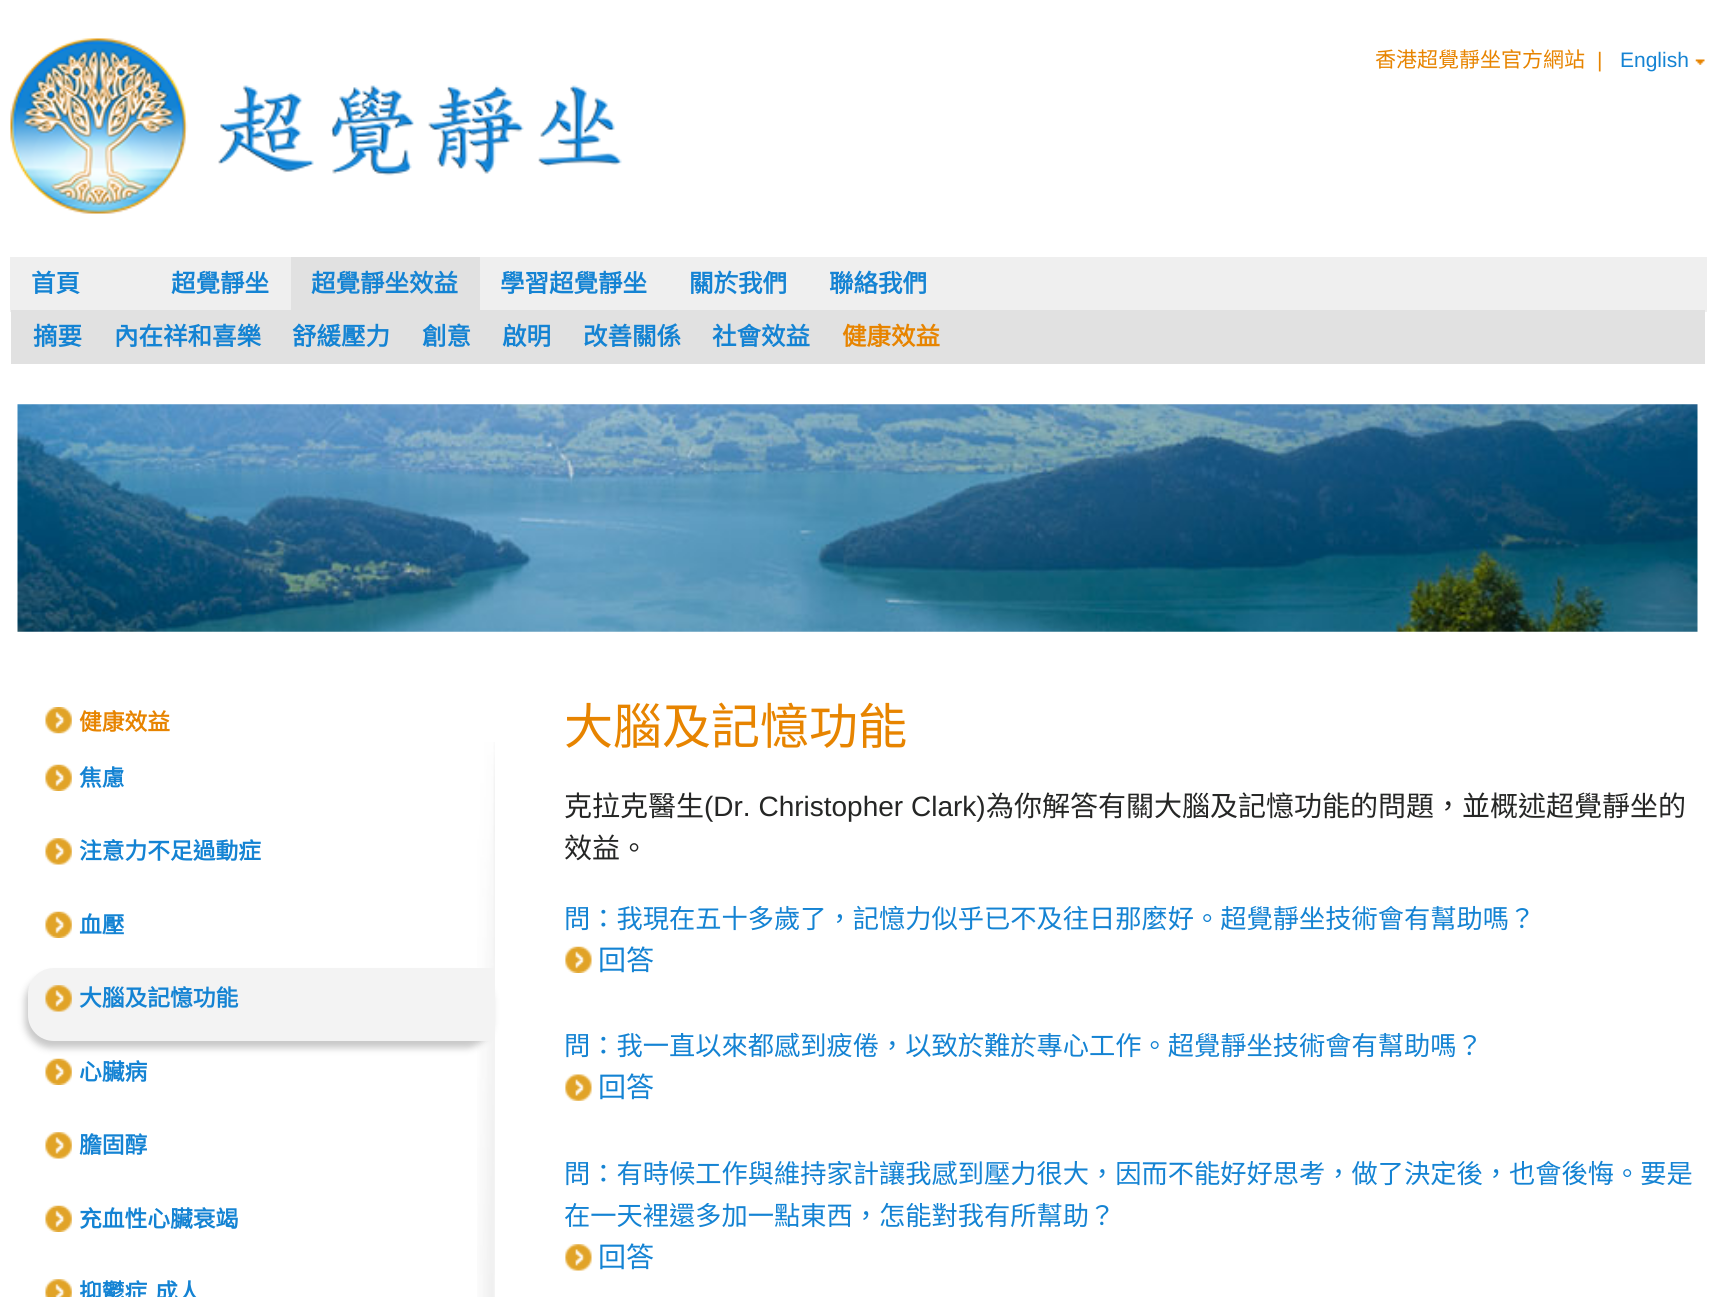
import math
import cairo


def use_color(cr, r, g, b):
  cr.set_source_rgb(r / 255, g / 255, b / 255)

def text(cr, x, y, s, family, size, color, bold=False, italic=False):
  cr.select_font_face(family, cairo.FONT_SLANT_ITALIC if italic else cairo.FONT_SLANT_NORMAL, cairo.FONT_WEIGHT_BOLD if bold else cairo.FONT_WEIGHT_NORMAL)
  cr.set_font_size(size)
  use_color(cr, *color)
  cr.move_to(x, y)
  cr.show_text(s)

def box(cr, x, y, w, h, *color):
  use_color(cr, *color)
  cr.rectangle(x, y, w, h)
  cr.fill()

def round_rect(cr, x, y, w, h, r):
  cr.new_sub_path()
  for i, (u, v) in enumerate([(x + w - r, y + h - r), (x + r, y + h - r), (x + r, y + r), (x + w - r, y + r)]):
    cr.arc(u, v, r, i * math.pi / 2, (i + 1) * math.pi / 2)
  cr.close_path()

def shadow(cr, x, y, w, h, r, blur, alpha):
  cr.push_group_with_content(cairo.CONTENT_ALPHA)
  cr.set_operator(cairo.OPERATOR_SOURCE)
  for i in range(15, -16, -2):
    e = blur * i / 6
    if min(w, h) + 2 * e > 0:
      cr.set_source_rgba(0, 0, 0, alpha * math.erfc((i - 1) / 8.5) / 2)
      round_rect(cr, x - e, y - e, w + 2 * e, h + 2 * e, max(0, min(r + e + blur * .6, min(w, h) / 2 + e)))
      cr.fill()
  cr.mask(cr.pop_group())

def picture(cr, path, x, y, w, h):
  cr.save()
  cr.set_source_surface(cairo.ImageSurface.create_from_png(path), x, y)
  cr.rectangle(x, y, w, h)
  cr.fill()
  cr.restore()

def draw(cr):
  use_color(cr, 255, 255, 255)
  cr.paint()
  picture(cr, "img_01.png", 10, 38, 612, 176)
  picture(cr, "img_02.png", 1695, 59, 10, 6)
  box(cr, 10, 257, 1697, 55, 239, 239, 239)
  box(cr, 291, 257, 189, 53, 225, 225, 225)
  box(cr, 11, 310, 1694, 54, 225, 225, 225)
  picture(cr, "img_03.png", 17, 404, 1681, 228)
  picture(cr, "img_04.png", 477, 742, 18, 555)
  picture(cr, "img_05.png", 45, 707, 27, 27)
  picture(cr, "img_06.png", 45, 764, 27, 27)
  picture(cr, "img_07.png", 45, 838, 27, 27)
  picture(cr, "img_06.png", 45, 911, 27, 27)
  use_color(cr, 200, 200, 200)
  shadow(cr, 25, 975, 467, 73, 26, 3.5, 1)
  use_color(cr, 243, 243, 243)
  cr.new_path()
  cr.move_to(54, 968)
  cr.line_to(495, 968)
  cr.line_to(495, 1041)
  cr.line_to(54, 1041)
  cr.curve_to(39.5, 1041, 28, 1029.5, 28, 1015)
  cr.line_to(28, 994)
  cr.curve_to(28, 979.5, 39.5, 968, 54, 968)
  cr.close_path()
  cr.fill()
  picture(cr, "img_08.png", 45, 985, 27, 27)
  picture(cr, "img_06.png", 45, 1058, 27, 27)
  picture(cr, "img_07.png", 45, 1132, 27, 27)
  picture(cr, "img_06.png", 45, 1205, 27, 27)
  picture(cr, "img_09.png", 45, 1279, 27, 18)
  picture(cr, "img_10.png", 565, 946, 27, 27)
  picture(cr, "img_11.png", 565, 1074, 27, 27)
  picture(cr, "img_12.png", 565, 1244, 27, 27)
  text(cr, 1375, 67, "香港超覺靜坐官方網站", "Noto Sans CJK HK", 21, (231, 132, 0))
  text(cr, 1597, 67, "|", "Liberation Sans", 21, (231, 132, 0))
  text(cr, 1620, 67, "English", "Liberation Sans", 21, (20, 131, 211))
  text(cr, 31, 292, "首頁", "Noto Sans CJK HK", 24.5, (20, 131, 211), bold=True)
  text(cr, 171, 292, "超覺靜坐", "Noto Sans CJK HK", 24.5, (20, 131, 211), bold=True)
  text(cr, 311, 292, "超覺靜坐效益", "Noto Sans CJK HK", 24.5, (20, 131, 211), bold=True)
  text(cr, 500, 292, "學習超覺靜坐", "Noto Sans CJK HK", 24.5, (20, 131, 211), bold=True)
  text(cr, 689, 292, "關於我們", "Noto Sans CJK HK", 24.5, (20, 131, 211), bold=True)
  text(cr, 829, 292, "聯絡我們", "Noto Sans CJK HK", 24.5, (20, 131, 211), bold=True)
  text(cr, 33, 345, "摘要", "Noto Sans CJK HK", 24.5, (20, 131, 211), bold=True)
  text(cr, 114, 345, "內在祥和喜樂", "Noto Sans CJK HK", 24.5, (20, 131, 211), bold=True)
  text(cr, 292, 345, "舒緩壓力", "Noto Sans CJK HK", 24.5, (20, 131, 211), bold=True)
  text(cr, 422, 345, "創意", "Noto Sans CJK HK", 24.5, (20, 131, 211), bold=True)
  text(cr, 502, 345, "啟明", "Noto Sans CJK HK", 24.5, (20, 131, 211), bold=True)
  text(cr, 583, 345, "改善關係", "Noto Sans CJK HK", 24.5, (20, 131, 211), bold=True)
  text(cr, 712, 345, "社會效益", "Noto Sans CJK HK", 24.5, (20, 131, 211), bold=True)
  text(cr, 842, 345, "健康效益", "Noto Sans CJK HK", 24.5, (231, 132, 0), bold=True)
  text(cr, 79, 730, "健康效益", "Noto Sans CJK HK", 22.75, (231, 132, 0), bold=True)
  text(cr, 79, 786, "焦慮", "Noto Sans CJK HK", 22.75, (20, 131, 211), bold=True)
  text(cr, 79, 859, "注意力不足過動症", "Noto Sans CJK HK", 22.75, (20, 131, 211), bold=True)
  text(cr, 79, 933, "血壓", "Noto Sans CJK HK", 22.75, (20, 131, 211), bold=True)
  text(cr, 79, 1006, "大腦及記憶功能", "Noto Sans CJK HK", 22.75, (20, 131, 211), bold=True)
  text(cr, 79, 1080, "心臟病", "Noto Sans CJK HK", 22.75, (20, 131, 211), bold=True)
  text(cr, 79, 1153, "膽固醇", "Noto Sans CJK HK", 22.75, (20, 131, 211), bold=True)
  text(cr, 79, 1227, "充血性心臟衰竭", "Noto Sans CJK HK", 22.75, (20, 131, 211), bold=True)
  text(cr, 79, 1300, "抑鬱症", "Noto Sans CJK HK", 22.75, (20, 131, 211), bold=True)
  text(cr, 155, 1300, "成人", "Noto Sans CJK HK", 22.75, (20, 131, 211), bold=True)
  text(cr, 564, 744, "大腦及記憶功能", "Noto Sans CJK HK", 49, (231, 132, 0))
  text(cr, 564, 816, "克拉克醫生", "Noto Sans CJK HK", 28, (37, 38, 37))
  text(cr, 704, 816, "(Dr. Christopher Clark)", "Liberation Sans", 28, (37, 38, 37))
  text(cr, 986, 816, "為你解答有關大腦及記憶功能的問題，並概述超覺靜坐的", "Noto Sans CJK HK", 28, (37, 38, 37))
  text(cr, 564, 858, "效益。", "Noto Sans CJK HK", 28, (37, 38, 37))
  text(cr, 564, 928, "問：我現在五十多歲了，記憶力似乎已不及往日那麼好。超覺靜坐技術會有幫助嗎？", "Noto Sans CJK HK", 26.25, (20, 131, 211))
  text(cr, 598, 970, "回答", "Noto Sans CJK HK", 28, (20, 131, 211))
  text(cr, 564, 1055, "問：我一直以來都感到疲倦，以致於難於專心工作。超覺靜坐技術會有幫助嗎？", "Noto Sans CJK HK", 26.25, (20, 131, 211))
  text(cr, 598, 1097, "回答", "Noto Sans CJK HK", 28, (20, 131, 211))
  text(cr, 564, 1183, "問：有時候工作與維持家計讓我感到壓力很大，因而不能好好思考，做了決定後，也會後悔。要是", "Noto Sans CJK HK", 26.25, (20, 131, 211))
  text(cr, 564, 1225, "在一天裡還多加一點東西，怎能對我有所幫助？", "Noto Sans CJK HK", 26.25, (20, 131, 211))
  text(cr, 598, 1267, "回答", "Noto Sans CJK HK", 28, (20, 131, 211))


surface = cairo.ImageSurface(cairo.FORMAT_RGB24, 1714, 1297)
cr = cairo.Context(surface)
options = cairo.FontOptions()
options.set_hint_metrics(cairo.HINT_METRICS_OFF)
options.set_hint_style(cairo.HINT_STYLE_NONE)
cr.set_font_options(options)
cr.set_miter_limit(4)
draw(cr)
surface.write_to_png("out.png")
